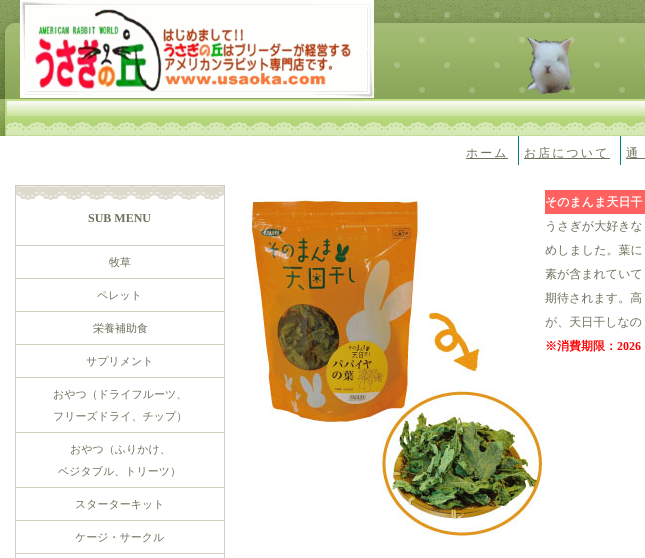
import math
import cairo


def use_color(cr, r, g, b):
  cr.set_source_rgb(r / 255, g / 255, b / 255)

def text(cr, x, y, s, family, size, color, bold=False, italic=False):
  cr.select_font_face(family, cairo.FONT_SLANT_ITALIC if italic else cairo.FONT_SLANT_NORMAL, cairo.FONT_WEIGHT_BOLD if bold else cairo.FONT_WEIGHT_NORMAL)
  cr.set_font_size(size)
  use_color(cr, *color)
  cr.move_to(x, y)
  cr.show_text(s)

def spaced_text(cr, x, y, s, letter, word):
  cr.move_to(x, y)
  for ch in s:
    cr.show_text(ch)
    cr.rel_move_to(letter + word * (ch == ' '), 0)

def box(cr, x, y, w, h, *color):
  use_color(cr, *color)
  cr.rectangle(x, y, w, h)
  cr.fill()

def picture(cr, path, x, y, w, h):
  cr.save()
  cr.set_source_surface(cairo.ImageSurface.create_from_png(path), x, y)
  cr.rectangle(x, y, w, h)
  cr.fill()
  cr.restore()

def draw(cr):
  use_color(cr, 255, 255, 255)
  cr.paint()
  picture(cr, "img_01.png", 0, 0, 645, 136)
  picture(cr, "img_02.png", 20, 0, 354, 98)
  box(cr, 466, 158, 42, 1, 112, 111, 91)
  box(cr, 518, 136, 1, 29, 3, 125, 119)
  box(cr, 524, 158, 86, 1, 112, 111, 91)
  box(cr, 620, 136, 1, 29, 3, 125, 119)
  box(cr, 626, 158, 19, 1, 112, 111, 91)
  picture(cr, "img_03.png", 16, 186, 208, 14)
  cr.rectangle(15.5, 185.5, 209, 60)
  use_color(cr, 211, 205, 194)
  cr.set_line_width(1)
  cr.stroke()
  box(cr, 224, 246, 1, 312, 211, 205, 194)
  box(cr, 15, 278, 210, 1, 211, 205, 194)
  box(cr, 15, 246, 1, 33, 211, 205, 194)
  box(cr, 15, 311, 210, 1, 211, 205, 194)
  box(cr, 15, 279, 1, 33, 211, 205, 194)
  box(cr, 15, 344, 210, 1, 211, 205, 194)
  box(cr, 15, 312, 1, 33, 211, 205, 194)
  box(cr, 15, 377, 210, 1, 211, 205, 194)
  box(cr, 15, 345, 1, 33, 211, 205, 194)
  box(cr, 15, 432, 210, 1, 211, 205, 194)
  box(cr, 15, 378, 1, 55, 211, 205, 194)
  box(cr, 15, 487, 210, 1, 211, 205, 194)
  box(cr, 15, 433, 1, 55, 211, 205, 194)
  box(cr, 15, 520, 210, 1, 211, 205, 194)
  box(cr, 15, 488, 1, 33, 211, 205, 194)
  box(cr, 15, 553, 210, 1, 211, 205, 194)
  box(cr, 15, 521, 1, 37, 211, 205, 194)
  picture(cr, "img_04.png", 245, 198, 300, 342)
  box(cr, 545, 190, 100, 24, 255, 96, 96)
  cr.select_font_face("WenQuanYi Zen Hei Medium")
  cr.set_font_size(12)
  use_color(cr, 112, 111, 91)
  spaced_text(cr, 466, 157, "ホーム", 2, 0)
  spaced_text(cr, 524, 157, "お店について", 2, 0)
  spaced_text(cr, 626, 157, "通", 2, 0)
  text(cr, 88, 222, "SUB MENU", "Liberation Serif", 12, (112, 111, 91), bold=True)
  text(cr, 109, 266, "牧草", "WenQuanYi Zen Hei Medium", 11, (112, 111, 91))
  text(cr, 97, 299, "ペレット", "WenQuanYi Zen Hei Medium", 11, (112, 111, 91))
  text(cr, 93, 332, "栄養補助食", "WenQuanYi Zen Hei Medium", 11, (112, 111, 91))
  text(cr, 86, 365, "サプリメント", "WenQuanYi Zen Hei Medium", 11, (112, 111, 91))
  text(cr, 53, 398, "おやつ（ドライフルーツ、", "WenQuanYi Zen Hei Medium", 11, (112, 111, 91))
  text(cr, 53, 420, "フリーズドライ、チップ）", "WenQuanYi Zen Hei Medium", 11, (112, 111, 91))
  text(cr, 70, 453, "おやつ（ふりかけ、", "WenQuanYi Zen Hei Medium", 11, (112, 111, 91))
  text(cr, 58, 475, "ベジタブル、トリーツ）", "WenQuanYi Zen Hei Medium", 11, (112, 111, 91))
  text(cr, 75, 508, "スターターキット", "WenQuanYi Zen Hei Medium", 11, (112, 111, 91))
  text(cr, 75, 541, "ケージ・サークル", "WenQuanYi Zen Hei Medium", 11, (112, 111, 91))
  cr.select_font_face("WenQuanYi Zen Hei", cairo.FONT_SLANT_NORMAL, cairo.FONT_WEIGHT_BOLD)
  cr.set_font_size(12)
  use_color(cr, 255, 255, 255)
  spaced_text(cr, 545, 206, "そのまんま天日干", 0, -1)
  text(cr, 545, 230, "うさぎが大好きな", "WenQuanYi Zen Hei Medium", 12, (112, 111, 91))
  text(cr, 545, 254, "めしました。葉に", "WenQuanYi Zen Hei Medium", 12, (112, 111, 91))
  text(cr, 545, 278, "素が含まれていて", "WenQuanYi Zen Hei Medium", 12, (112, 111, 91))
  text(cr, 545, 302, "期待されます。高", "WenQuanYi Zen Hei Medium", 12, (112, 111, 91))
  text(cr, 545, 326, "が、天日干しなの", "WenQuanYi Zen Hei Medium", 12, (112, 111, 91))
  text(cr, 545, 350, "※消費期限：", "WenQuanYi Zen Hei", 12, (255, 0, 0), bold=True)
  text(cr, 617, 350, "2026", "Liberation Serif", 12, (255, 0, 0), bold=True)


surface = cairo.ImageSurface(cairo.FORMAT_RGB24, 645, 558)
cr = cairo.Context(surface)
options = cairo.FontOptions()
options.set_hint_metrics(cairo.HINT_METRICS_OFF)
options.set_hint_style(cairo.HINT_STYLE_NONE)
cr.set_font_options(options)
cr.set_miter_limit(4)
draw(cr)
surface.write_to_png("out.png")
